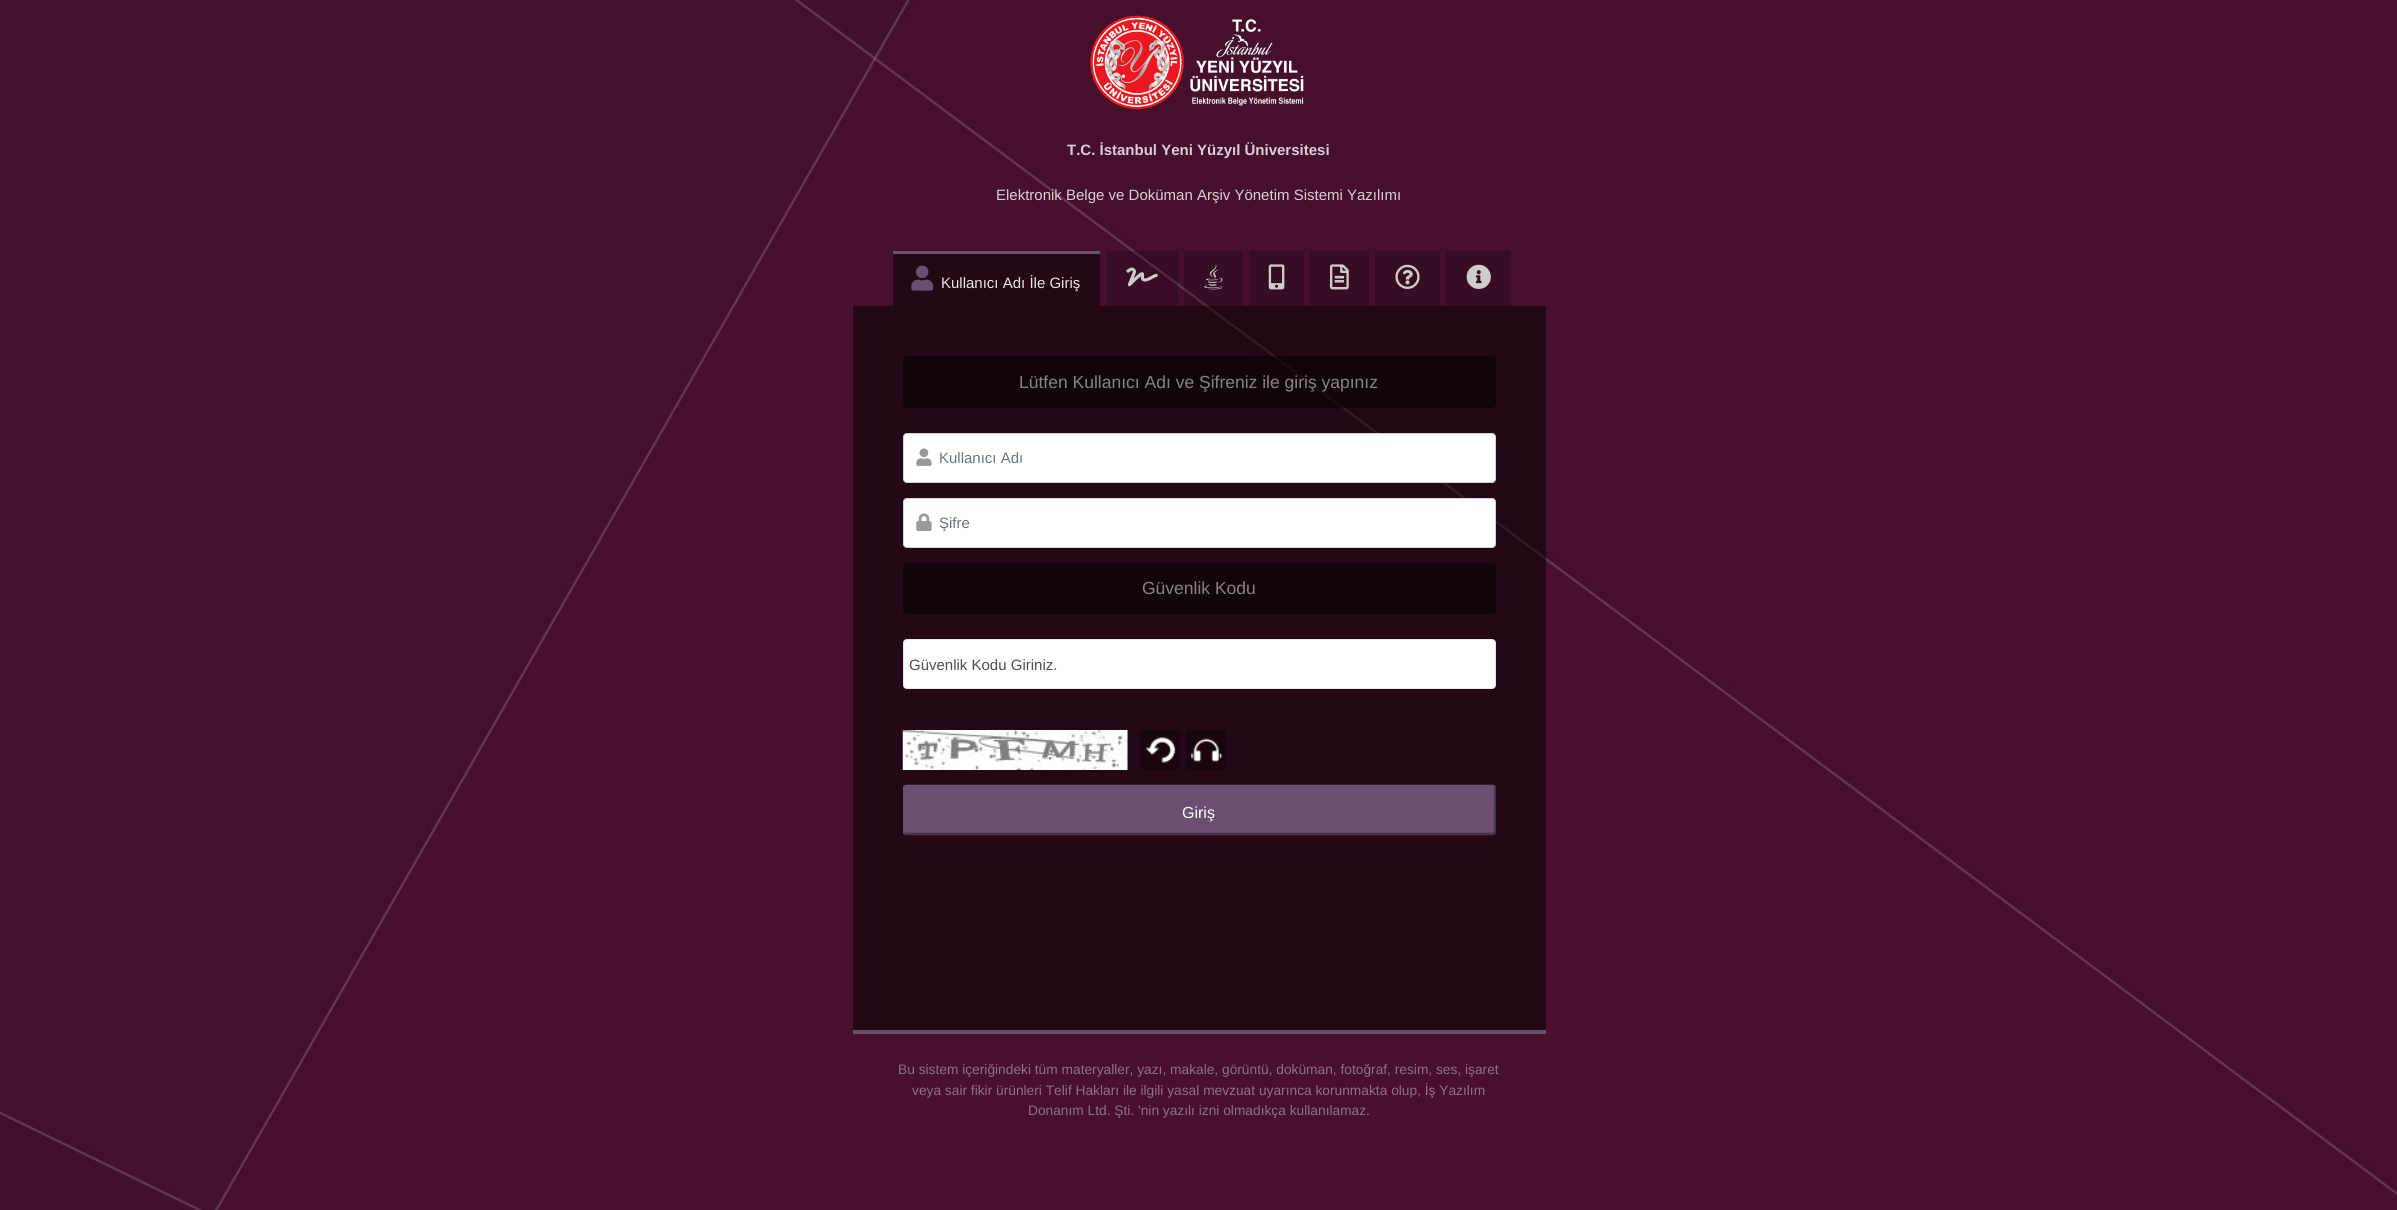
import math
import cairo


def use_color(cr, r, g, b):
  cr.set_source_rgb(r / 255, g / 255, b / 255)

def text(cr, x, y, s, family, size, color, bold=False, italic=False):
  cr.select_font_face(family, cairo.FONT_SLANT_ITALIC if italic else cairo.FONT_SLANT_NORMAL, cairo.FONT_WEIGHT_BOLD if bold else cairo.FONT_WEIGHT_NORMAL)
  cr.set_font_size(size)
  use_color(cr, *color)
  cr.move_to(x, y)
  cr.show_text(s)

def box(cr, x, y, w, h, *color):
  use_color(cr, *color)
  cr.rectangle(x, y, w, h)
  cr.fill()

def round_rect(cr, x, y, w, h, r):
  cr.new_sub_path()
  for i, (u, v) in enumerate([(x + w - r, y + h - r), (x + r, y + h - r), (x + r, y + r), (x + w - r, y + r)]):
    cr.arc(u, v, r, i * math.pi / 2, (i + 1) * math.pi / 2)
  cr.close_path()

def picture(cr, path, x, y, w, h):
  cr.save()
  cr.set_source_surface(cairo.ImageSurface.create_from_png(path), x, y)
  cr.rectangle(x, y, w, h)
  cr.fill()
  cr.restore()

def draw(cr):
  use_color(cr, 255, 255, 255)
  cr.paint()
  picture(cr, "img_01.png", 0, 0, 2397, 1210)
  picture(cr, "img_02.png", 1090, 15, 214, 95)
  box(cr, 893, 254, 207, 52, 36, 8, 23)
  box(cr, 893, 251, 207, 3, 107, 78, 113)
  picture(cr, "img_03.png", 911, 265, 23, 26)
  cr.set_source_rgba(0, 0, 0, 0.2)
  cr.rectangle(1106, 251, 72, 55)
  cr.fill()
  picture(cr, "img_04.png", 1126, 267, 32, 20)
  cr.rectangle(1184, 251, 59, 55)
  cr.fill()
  picture(cr, "img_05.png", 1204, 264, 19, 26)
  box(cr, 1249, 251, 55, 55, 56, 12, 35)
  picture(cr, "img_06.png", 1268, 264, 17, 26)
  box(cr, 1310, 251, 59, 55, 56, 12, 35)
  picture(cr, "img_07.png", 1330, 264, 19, 26)
  box(cr, 1375, 251, 65, 55, 56, 12, 35)
  picture(cr, "img_08.png", 1395, 264, 25, 25)
  box(cr, 1446, 251, 65, 55, 56, 12, 35)
  picture(cr, "img_09.png", 1466, 264, 25, 25)
  cr.set_source_rgba(0, 0, 0, 0.5)
  cr.rectangle(853, 306, 693, 724)
  cr.fill()
  box(cr, 853, 1030, 693, 4, 107, 78, 113)
  cr.set_source_rgba(0, 0, 0, 0.5)
  round_rect(cr, 903, 356, 593, 52, 4)
  cr.fill()
  use_color(cr, 255, 255, 255)
  round_rect(cr, 903.5, 433.5, 592, 49, 3.5)
  cr.fill_preserve()
  use_color(cr, 206, 212, 218)
  cr.set_line_width(1)
  cr.stroke()
  picture(cr, "img_10.png", 916, 448, 16, 18)
  use_color(cr, 255, 255, 255)
  round_rect(cr, 903.5, 498.5, 592, 49, 3.5)
  cr.fill_preserve()
  use_color(cr, 206, 212, 218)
  cr.stroke()
  picture(cr, "img_11.png", 916, 513, 16, 18)
  use_color(cr, 18, 4, 11)
  round_rect(cr, 903, 563, 593, 51, 4)
  cr.fill()
  use_color(cr, 255, 255, 255)
  round_rect(cr, 903.5, 639.5, 592, 49, 3.5)
  cr.fill_preserve()
  use_color(cr, 229, 229, 229)
  cr.stroke()
  picture(cr, "img_12.png", 902, 730, 226, 40)
  picture(cr, "img_13.png", 1140, 730, 40, 40)
  picture(cr, "img_14.png", 1186, 730, 40, 40)
  use_color(cr, 107, 78, 113)
  round_rect(cr, 903, 785, 593, 50, 4)
  cr.fill()
  cr.save()
  cr.rectangle(903, 356, 593, 624)
  cr.clip()
  cr.new_path()
  cr.move_to(1494.5, 787)
  cr.curve_to(1496, 789, 1495, 819.5, 1495, 824)
  cr.curve_to(1495, 825, 1496.5, 833.5, 1492.5, 834)
  cr.line_to(906, 834)
  cr.line_to(904.5, 833)
  use_color(cr, 71, 52, 75)
  cr.set_line_width(2.5)
  cr.stroke()
  cr.new_path()
  cr.move_to(904.5, 833)
  cr.curve_to(902.5, 831, 904, 800.5, 904, 796)
  cr.curve_to(904, 795, 902, 786.5, 906, 786)
  cr.line_to(1492.5, 786)
  cr.line_to(1494.5, 787)
  use_color(cr, 107, 78, 113)
  cr.stroke()
  cr.restore()
  text(cr, 1067, 155, "T.C. İstanbul Yeni Yüzyıl Üniversitesi", "Liberation Sans", 15, (218, 207, 213), bold=True)
  text(cr, 996, 200, "Elektronik Belge ve Doküman Arşiv Yönetim Sistemi Yazılımı", "Liberation Sans", 15, (218, 207, 213))
  text(cr, 941, 288, "Kullanıcı Adı İle Giriş", "Liberation Sans", 15, (233, 230, 232))
  text(cr, 1019, 388, "Lütfen Kullanıcı Adı ve Şifreniz ile giriş yapınız", "Liberation Sans", 17.5, (136, 130, 133))
  text(cr, 939, 463, "Kullanıcı Adı", "Liberation Sans", 15, (108, 117, 125))
  text(cr, 939, 528, "Şifre", "Liberation Sans", 15, (108, 117, 125))
  text(cr, 1142, 594, "Güvenlik Kodu", "Liberation Sans", 17.5, (136, 130, 133))
  text(cr, 909, 670, "Güvenlik Kodu Giriniz.", "Liberation Sans", 15, (73, 80, 87))
  text(cr, 1182, 818, "Giriş", "Liberation Sans", 16, (255, 255, 255))
  text(cr, 898, 1074, "Bu sistem içeriğindeki tüm materyaller, yazı, makale, görüntü, doküman, fotoğraf, resim, ses, işaret", "Liberation Sans", 13.75, (145, 112, 129))
  text(cr, 912, 1095, "veya sair fikir ürünleri Telif Hakları ile ilgili yasal mevzuat uyarınca korunmakta olup, İş Yazılım", "Liberation Sans", 13.75, (145, 112, 129))
  text(cr, 1028, 1115, "Donanım Ltd. Şti. 'nin yazılı izni olmadıkça kullanılamaz.", "Liberation Sans", 13.75, (145, 112, 129))


surface = cairo.ImageSurface(cairo.FORMAT_RGB24, 2397, 1210)
cr = cairo.Context(surface)
options = cairo.FontOptions()
options.set_hint_metrics(cairo.HINT_METRICS_OFF)
options.set_hint_style(cairo.HINT_STYLE_NONE)
cr.set_font_options(options)
cr.set_miter_limit(4)
draw(cr)
surface.write_to_png("out.png")
